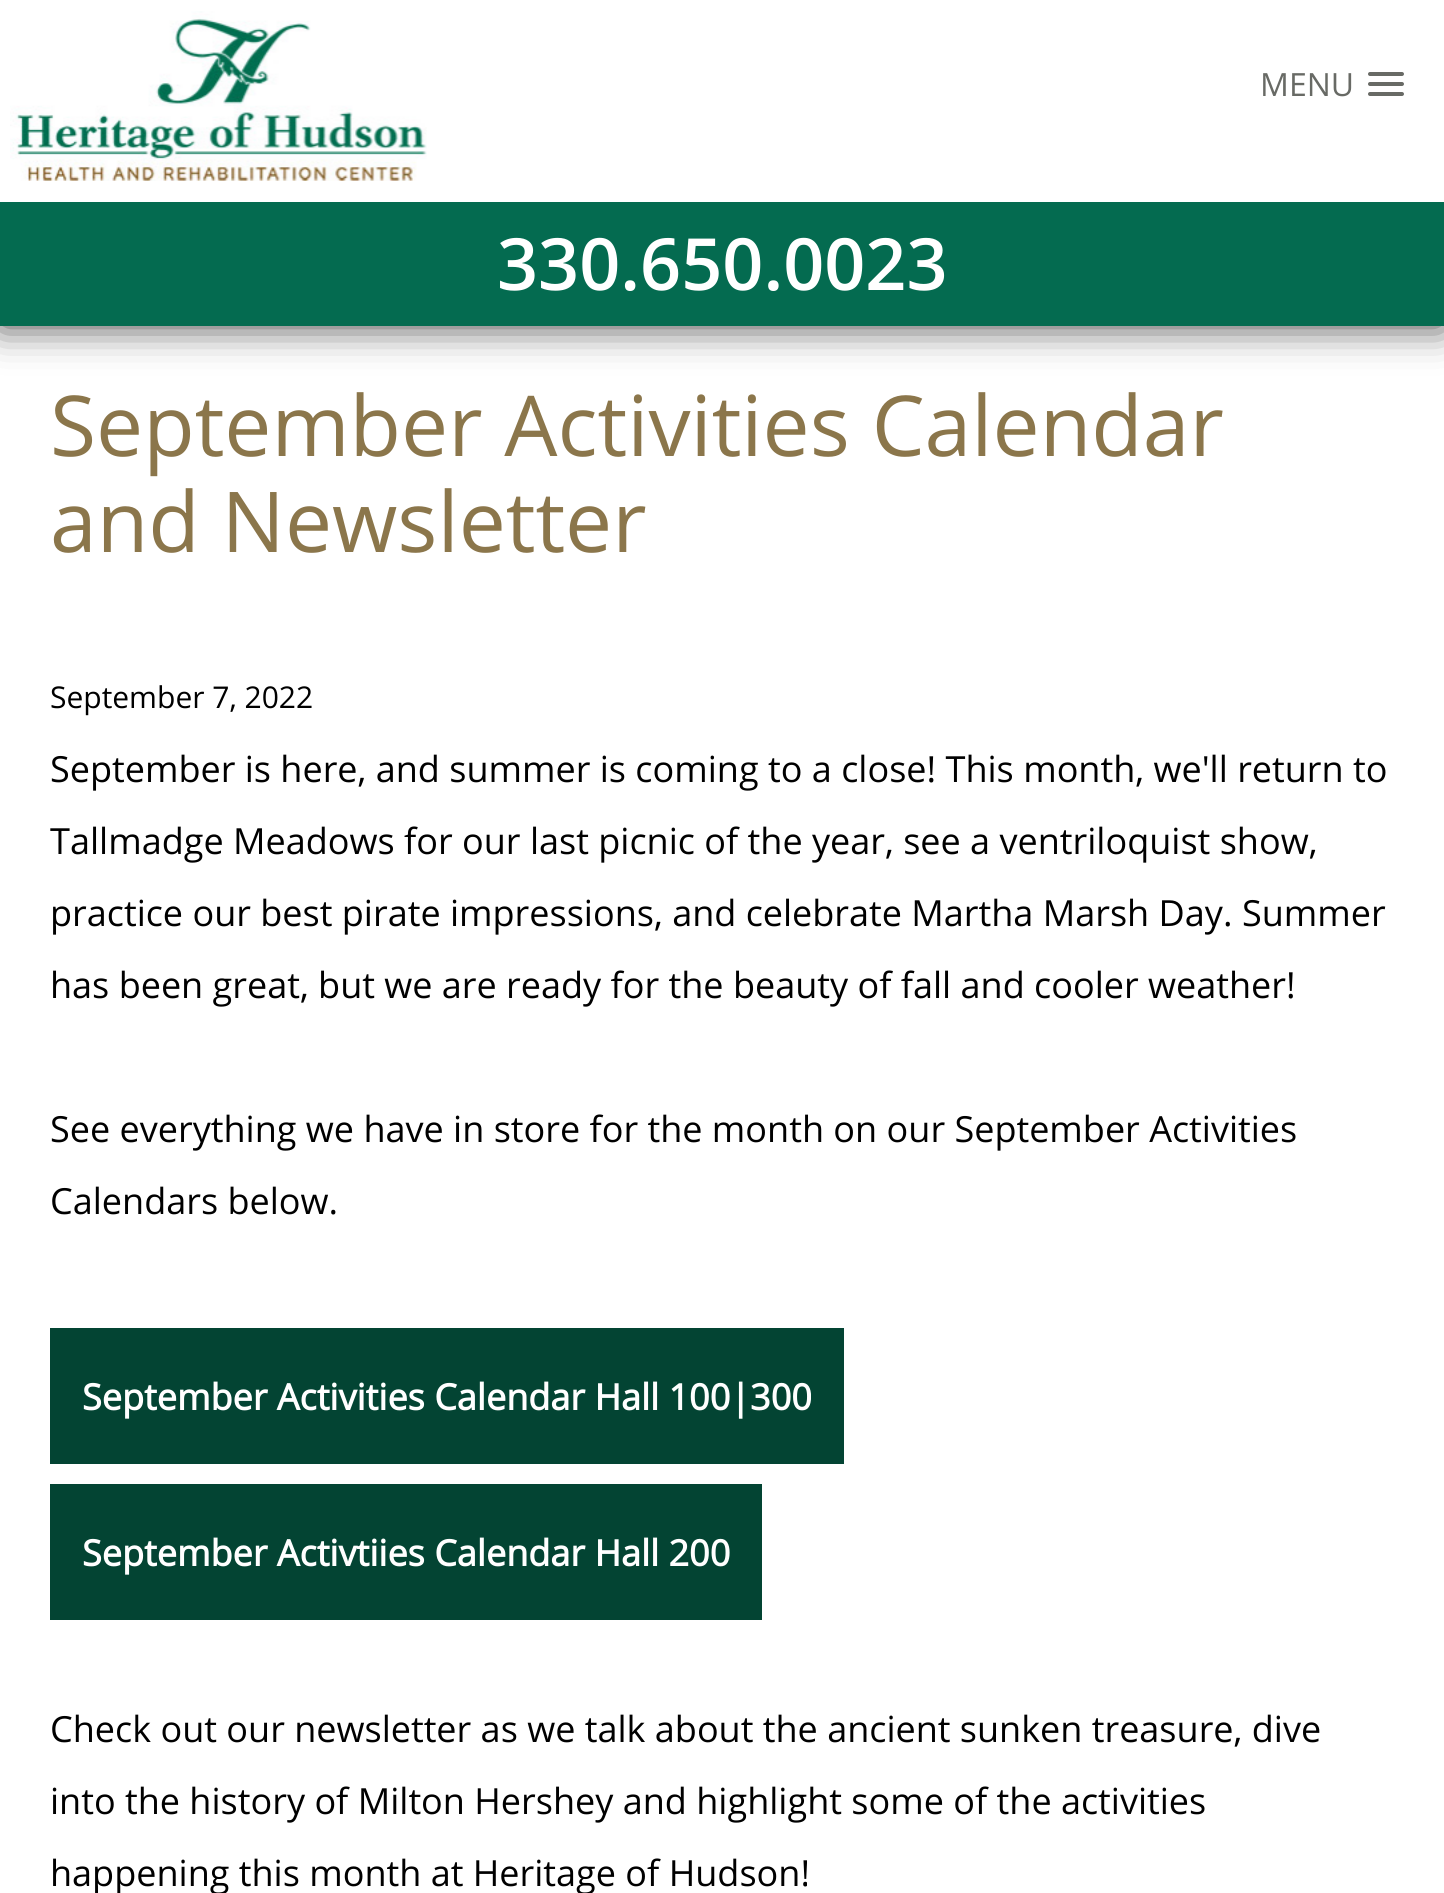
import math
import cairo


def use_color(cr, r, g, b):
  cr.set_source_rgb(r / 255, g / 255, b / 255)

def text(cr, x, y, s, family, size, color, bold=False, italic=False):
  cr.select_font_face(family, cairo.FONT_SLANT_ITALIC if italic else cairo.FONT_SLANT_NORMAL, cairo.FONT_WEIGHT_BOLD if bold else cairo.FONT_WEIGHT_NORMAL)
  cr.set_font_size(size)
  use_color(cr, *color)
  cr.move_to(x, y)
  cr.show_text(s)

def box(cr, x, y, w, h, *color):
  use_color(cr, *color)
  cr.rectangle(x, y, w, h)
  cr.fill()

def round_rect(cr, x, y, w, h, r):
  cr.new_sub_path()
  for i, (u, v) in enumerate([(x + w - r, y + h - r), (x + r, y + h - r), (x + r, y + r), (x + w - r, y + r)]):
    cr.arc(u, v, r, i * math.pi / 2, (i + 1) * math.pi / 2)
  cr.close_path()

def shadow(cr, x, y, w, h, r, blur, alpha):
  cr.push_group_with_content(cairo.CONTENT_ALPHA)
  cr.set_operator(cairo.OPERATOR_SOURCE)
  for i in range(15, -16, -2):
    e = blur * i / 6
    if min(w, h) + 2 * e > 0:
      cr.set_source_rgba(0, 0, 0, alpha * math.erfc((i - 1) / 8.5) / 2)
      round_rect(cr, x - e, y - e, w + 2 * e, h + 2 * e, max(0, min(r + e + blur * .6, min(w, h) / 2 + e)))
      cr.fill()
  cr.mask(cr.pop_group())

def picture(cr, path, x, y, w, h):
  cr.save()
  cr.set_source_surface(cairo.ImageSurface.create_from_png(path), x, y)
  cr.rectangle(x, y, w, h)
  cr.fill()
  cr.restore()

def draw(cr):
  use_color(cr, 255, 255, 255)
  cr.paint()
  use_color(cr, 0, 0, 0)
  shadow(cr, 0, 0, 1444, 326, 0, 20, 0.75)
  box(cr, 0, 0, 1444, 202, 255, 255, 255)
  picture(cr, "img_01.png", 10, 11, 417, 170)
  use_color(cr, 104, 106, 101)
  round_rect(cr, 1368, 72, 36, 4, 2)
  cr.fill()
  round_rect(cr, 1368, 82, 36, 4, 2)
  cr.fill()
  round_rect(cr, 1368, 92, 36, 4, 2)
  cr.fill()
  box(cr, 0, 202, 1444, 124, 4, 107, 80)
  box(cr, 50, 1328, 794, 136, 3, 68, 51)
  box(cr, 50, 1484, 712, 136, 3, 68, 51)
  text(cr, 1260, 96, "MENU", "Open Sans", 32, (104, 106, 101))
  text(cr, 497, 290, "330.650.0023", "Open Sans SemiBold", 72, (255, 255, 255))
  text(cr, 50, 456, "September Activities Calendar", "Open Sans", 84, (139, 118, 75))
  text(cr, 50, 552, "and Newsletter", "Open Sans", 84, (139, 118, 75))
  text(cr, 50, 708, "September 7, 2022", "Open Sans", 30, (0, 0, 0))
  text(cr, 50, 782, "September is here, and summer is coming to a close! This month, we'll return to", "Open Sans", 36, (0, 0, 0))
  text(cr, 50, 854, "Tallmadge Meadows for our last picnic of the year, see a ventriloquist show,", "Open Sans", 36, (0, 0, 0))
  text(cr, 50, 926, "practice our best pirate impressions, and celebrate Martha Marsh Day. Summer", "Open Sans", 36, (0, 0, 0))
  text(cr, 50, 998, "has been great, but we are ready for the beauty of fall and cooler weather!", "Open Sans", 36, (0, 0, 0))
  text(cr, 50, 1142, "See everything we have in store for the month on our September Activities", "Open Sans", 36, (0, 0, 0))
  text(cr, 50, 1214, "Calendars below.", "Open Sans", 36, (0, 0, 0))
  text(cr, 82, 1410, "September Activities Calendar Hall 100|300", "Open Sans", 36, (255, 255, 255), bold=True)
  text(cr, 82, 1566, "September Activtiies Calendar Hall 200", "Open Sans", 36, (255, 255, 255), bold=True)
  text(cr, 50, 1742, "Check out our newsletter as we talk about the ancient sunken treasure, dive", "Open Sans", 36, (0, 0, 0))
  text(cr, 50, 1814, "into the history of Milton Hershey and highlight some of the activities", "Open Sans", 36, (0, 0, 0))
  text(cr, 50, 1886, "happening this month at Heritage of Hudson!", "Open Sans", 36, (0, 0, 0))


surface = cairo.ImageSurface(cairo.FORMAT_RGB24, 1444, 1893)
cr = cairo.Context(surface)
options = cairo.FontOptions()
options.set_hint_metrics(cairo.HINT_METRICS_OFF)
options.set_hint_style(cairo.HINT_STYLE_NONE)
cr.set_font_options(options)
cr.set_miter_limit(4)
draw(cr)
surface.write_to_png("out.png")
